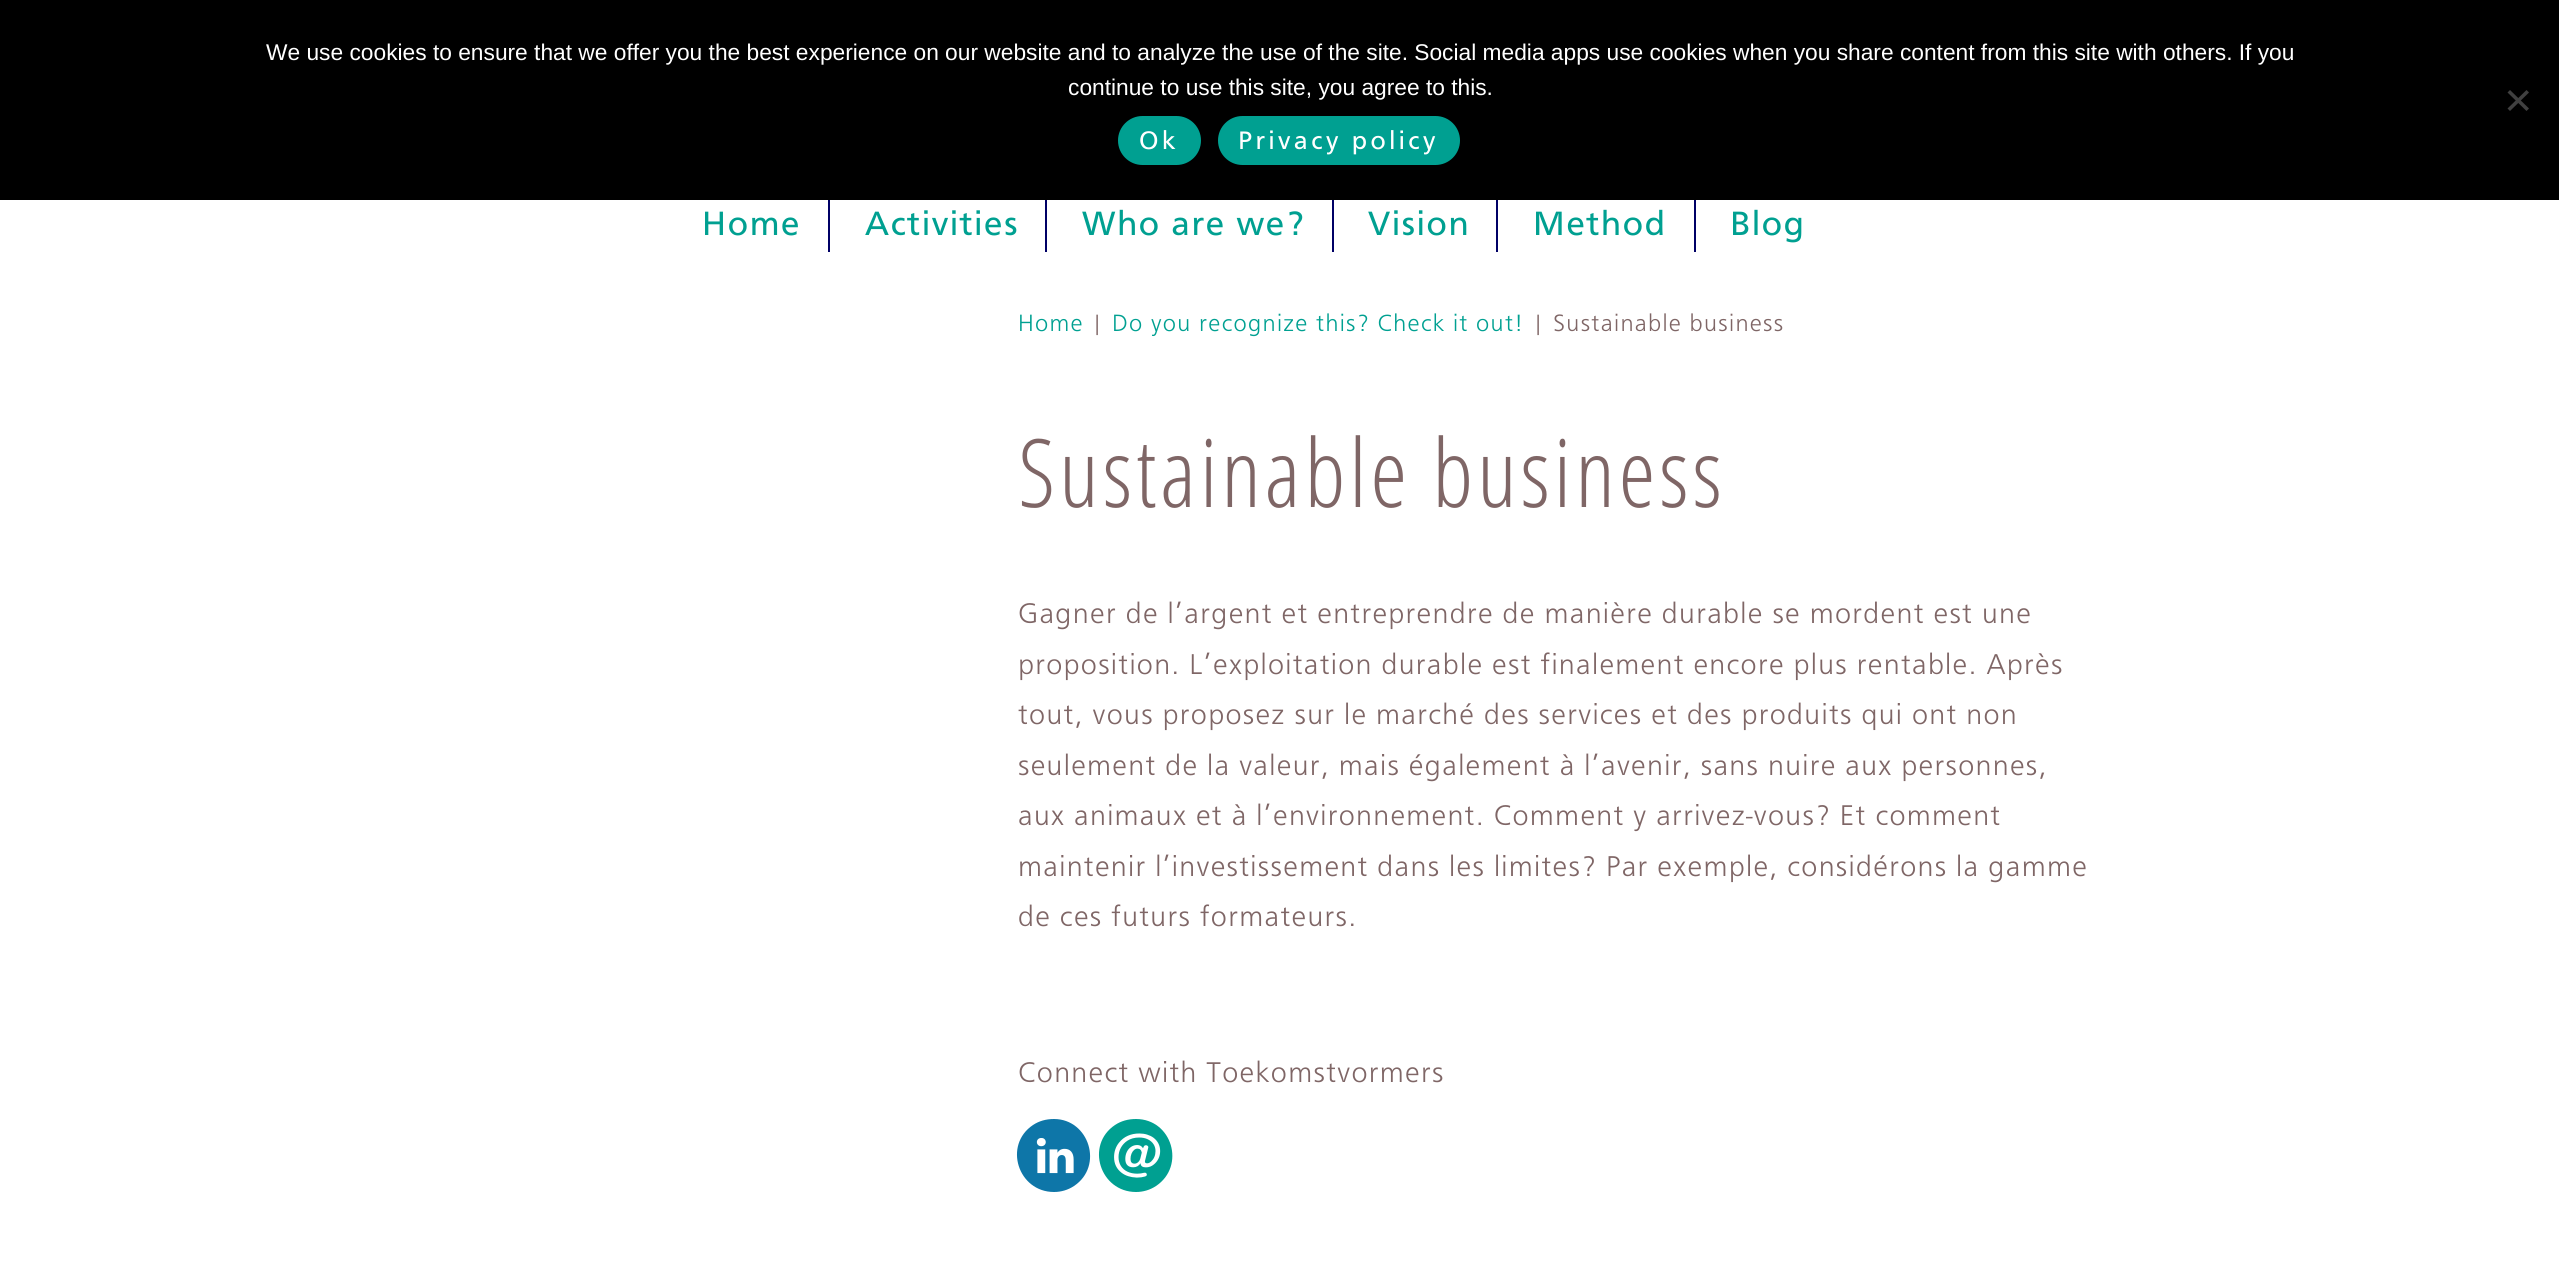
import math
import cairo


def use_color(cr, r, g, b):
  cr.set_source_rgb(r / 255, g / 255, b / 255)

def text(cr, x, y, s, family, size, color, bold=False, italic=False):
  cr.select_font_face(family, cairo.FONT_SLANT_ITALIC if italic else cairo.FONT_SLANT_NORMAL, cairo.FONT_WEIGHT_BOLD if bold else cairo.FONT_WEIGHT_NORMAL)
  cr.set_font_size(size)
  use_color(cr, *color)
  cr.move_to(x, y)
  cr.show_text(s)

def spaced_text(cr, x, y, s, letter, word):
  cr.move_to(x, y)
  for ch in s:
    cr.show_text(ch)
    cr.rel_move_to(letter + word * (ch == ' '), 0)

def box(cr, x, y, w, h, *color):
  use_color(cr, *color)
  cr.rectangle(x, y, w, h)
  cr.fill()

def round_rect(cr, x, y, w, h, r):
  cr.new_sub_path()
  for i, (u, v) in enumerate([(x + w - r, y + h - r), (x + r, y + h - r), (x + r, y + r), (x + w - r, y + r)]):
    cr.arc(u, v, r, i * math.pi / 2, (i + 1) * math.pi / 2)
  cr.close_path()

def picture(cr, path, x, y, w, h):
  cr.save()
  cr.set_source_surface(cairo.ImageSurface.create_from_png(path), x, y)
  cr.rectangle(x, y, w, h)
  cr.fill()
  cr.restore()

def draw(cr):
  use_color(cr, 255, 255, 255)
  cr.paint()
  box(cr, 828, 194, 2, 58, 0, 0, 102)
  box(cr, 1045, 194, 2, 58, 0, 0, 102)
  box(cr, 1332, 194, 2, 58, 0, 0, 102)
  box(cr, 1496, 194, 2, 58, 0, 0, 102)
  box(cr, 1694, 194, 2, 58, 0, 0, 102)
  box(cr, 0, 0, 2559, 200, 0, 0, 0)
  use_color(cr, 64, 64, 64)
  cr.new_path()
  cr.move_to(2526.5, 90)
  cr.line_to(2529, 92.5)
  cr.line_to(2510, 111)
  cr.line_to(2507.5, 108.5)
  cr.close_path()
  cr.fill()
  cr.new_path()
  cr.move_to(2507.5, 92.5)
  cr.line_to(2510, 90)
  cr.line_to(2529, 108.5)
  cr.line_to(2526.5, 111)
  cr.close_path()
  cr.fill()
  use_color(cr, 0, 160, 145)
  round_rect(cr, 1118, 116, 83, 49, 24.5)
  cr.fill()
  round_rect(cr, 1218, 116, 242, 49, 24.5)
  cr.fill()
  use_color(cr, 14, 118, 168)
  cr.new_path()
  cr.move_to(1054, 1192)
  cr.curve_to(1061, 1192, 1068, 1190, 1074, 1186)
  cr.curve_to(1104, 1166, 1089, 1119, 1054, 1119)
  cr.curve_to(1046, 1119, 1039, 1121, 1033, 1125)
  cr.curve_to(1003, 1145, 1018, 1192, 1054, 1192)
  cr.close_path()
  cr.fill()
  picture(cr, "img_01.png", 1036, 1138, 38, 36)
  use_color(cr, 0, 160, 145)
  cr.new_path()
  cr.move_to(1136, 1192)
  cr.curve_to(1143, 1192, 1150, 1190, 1156, 1186)
  cr.curve_to(1186, 1166, 1172, 1119, 1136, 1119)
  cr.curve_to(1128, 1119, 1121, 1121, 1115, 1125)
  cr.curve_to(1085, 1145, 1100, 1192, 1136, 1192)
  cr.close_path()
  cr.fill()
  picture(cr, "img_02.png", 1114, 1133, 47, 45)
  text(cr, 266, 60, "We use cookies to ensure that we offer you the best experience on our website and to analyze the use of the site. Social media apps use cookies when you share content from this site with others. If you", "Liberation Sans", 22.75, (255, 255, 255))
  text(cr, 1068, 95, "continue to use this site, you agree to this.", "Liberation Sans", 22.75, (255, 255, 255))
  cr.select_font_face("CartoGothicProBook")
  cr.set_font_size(26.25)
  spaced_text(cr, 1139, 149, "Ok", 3.5, 0)
  spaced_text(cr, 1238, 149, "Privacy policy", 3.5, 0)
  cr.set_font_size(35)
  use_color(cr, 0, 160, 145)
  spaced_text(cr, 702, 235, "Home", 1.75, 0)
  spaced_text(cr, 865, 235, "Activities", 1.75, 0)
  spaced_text(cr, 1082, 235, "Who are we?", 1.75, 0)
  spaced_text(cr, 1368, 235, "Vision", 1.75, 0)
  spaced_text(cr, 1533, 235, "Method", 1.75, 0)
  spaced_text(cr, 1730, 235, "Blog", 1.75, 0)
  cr.select_font_face("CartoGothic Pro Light")
  cr.set_font_size(24.5)
  spaced_text(cr, 1018, 331, "Home", 1.3, 0)
  use_color(cr, 127, 102, 102)
  spaced_text(cr, 1091, 331, "|", 1.3, 0)
  use_color(cr, 0, 160, 145)
  spaced_text(cr, 1112, 331, "Do you recognize this? Check it out!", 1.3, 0)
  use_color(cr, 127, 102, 102)
  spaced_text(cr, 1532, 331, "| Sustainable business", 1.3, 0)
  cr.select_font_face("Open Sans Light")
  cr.set_font_size(94.5)
  spaced_text(cr, 1018, 507, "Sustainable business", 3.5, 0)
  cr.select_font_face("CartoGothic Pro Light")
  cr.set_font_size(29.75)
  spaced_text(cr, 1018, 623, "Gagner de l’argent et entreprendre de manière durable se mordent est une", 1.3, 0)
  spaced_text(cr, 1018, 674, "proposition. L’exploitation durable est finalement encore plus rentable. Après", 1.3, 0)
  spaced_text(cr, 1018, 724, "tout, vous proposez sur le marché des services et des produits qui ont non", 1.3, 0)
  spaced_text(cr, 1018, 775, "seulement de la valeur, mais également à l’avenir, sans nuire aux personnes,", 1.3, 0)
  spaced_text(cr, 1018, 825, "aux animaux et à l’environnement. Comment y arrivez-vous? Et comment", 1.3, 0)
  spaced_text(cr, 1018, 876, "maintenir l’investissement dans les limites? Par exemple, considérons la gamme", 1.3, 0)
  spaced_text(cr, 1018, 926, "de ces futurs formateurs.", 1.3, 0)
  spaced_text(cr, 1018, 1082, "Connect with Toekomstvormers", 1.3, 0)


surface = cairo.ImageSurface(cairo.FORMAT_RGB24, 2559, 1279)
cr = cairo.Context(surface)
options = cairo.FontOptions()
options.set_hint_metrics(cairo.HINT_METRICS_OFF)
options.set_hint_style(cairo.HINT_STYLE_NONE)
cr.set_font_options(options)
cr.set_miter_limit(4)
draw(cr)
surface.write_to_png("out.png")
